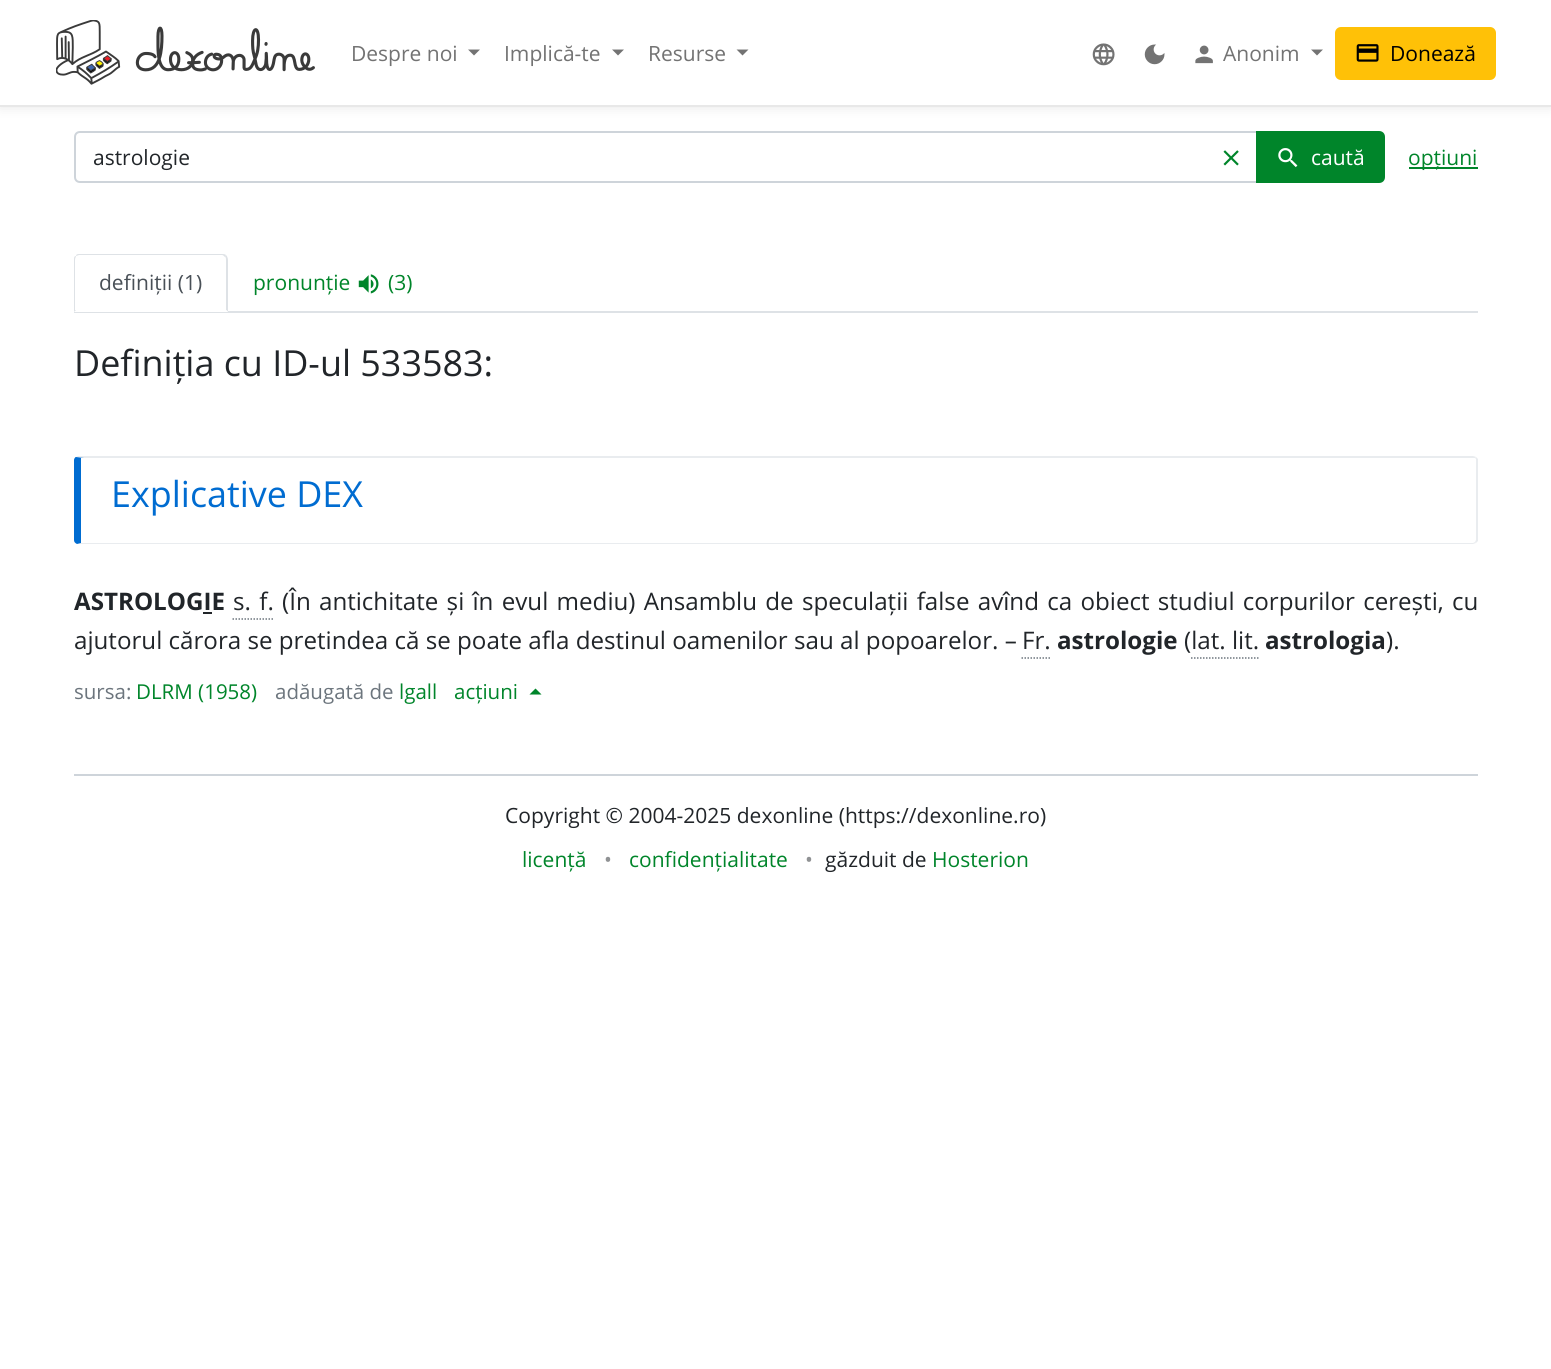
import math
import cairo


def use_color(cr, r, g, b):
  cr.set_source_rgb(r / 255, g / 255, b / 255)

def text(cr, x, y, s, family, size, color, bold=False, italic=False):
  cr.select_font_face(family, cairo.FONT_SLANT_ITALIC if italic else cairo.FONT_SLANT_NORMAL, cairo.FONT_WEIGHT_BOLD if bold else cairo.FONT_WEIGHT_NORMAL)
  cr.set_font_size(size)
  use_color(cr, *color)
  cr.move_to(x, y)
  cr.show_text(s)

def spaced_text(cr, x, y, s, letter, word):
  cr.move_to(x, y)
  for ch in s:
    cr.show_text(ch)
    cr.rel_move_to(letter + word * (ch == ' '), 0)

def box(cr, x, y, w, h, *color):
  use_color(cr, *color)
  cr.rectangle(x, y, w, h)
  cr.fill()

def round_rect(cr, x, y, w, h, r):
  cr.new_sub_path()
  for i, (u, v) in enumerate([(x + w - r, y + h - r), (x + r, y + h - r), (x + r, y + r), (x + w - r, y + r)]):
    cr.arc(u, v, r, i * math.pi / 2, (i + 1) * math.pi / 2)
  cr.close_path()

def shadow(cr, x, y, w, h, r, blur, alpha):
  cr.push_group_with_content(cairo.CONTENT_ALPHA)
  cr.set_operator(cairo.OPERATOR_SOURCE)
  for i in range(15, -16, -2):
    e = blur * i / 6
    if min(w, h) + 2 * e > 0:
      cr.set_source_rgba(0, 0, 0, alpha * math.erfc((i - 1) / 8.5) / 2)
      round_rect(cr, x - e, y - e, w + 2 * e, h + 2 * e, max(0, min(r + e + blur * .6, min(w, h) / 2 + e)))
      cr.fill()
  cr.mask(cr.pop_group())

def picture(cr, path, x, y, w, h):
  cr.save()
  cr.set_source_surface(cairo.ImageSurface.create_from_png(path), x, y)
  cr.rectangle(x, y, w, h)
  cr.fill()
  cr.restore()

def draw(cr):
  use_color(cr, 255, 255, 255)
  cr.paint()
  use_color(cr, 0, 0, 0)
  shadow(cr, 0, 0, 1551, 107, 0, 6, 0.1)
  box(cr, 0, 0, 1551, 105, 255, 255, 255)
  box(cr, 0, 105, 1551, 2, 232, 232, 232)
  picture(cr, "img_01.png", 56, 20, 259, 65)
  use_color(cr, 115, 115, 115)
  cr.new_path()
  cr.move_to(468, 49.5)
  cr.line_to(480, 49.5)
  cr.line_to(474, 55.5)
  cr.close_path()
  cr.fill()
  cr.new_path()
  cr.move_to(612, 49.5)
  cr.line_to(624, 49.5)
  cr.line_to(618, 55.5)
  cr.close_path()
  cr.fill()
  cr.new_path()
  cr.move_to(736.5, 49.5)
  cr.line_to(748.5, 49.5)
  cr.line_to(742.5, 55.5)
  cr.close_path()
  cr.fill()
  picture(cr, "img_02.png", 1092, 43, 23, 23)
  picture(cr, "img_03.png", 1144, 44, 21, 21)
  picture(cr, "img_04.png", 1195, 45, 18, 19)
  cr.new_path()
  cr.move_to(1311, 49.5)
  cr.line_to(1323, 49.5)
  cr.line_to(1317, 55.5)
  cr.close_path()
  cr.fill()
  use_color(cr, 255, 193, 7)
  round_rect(cr, 1336, 28, 159, 51, 5)
  cr.fill_preserve()
  cr.stroke()
  picture(cr, "img_05.png", 1356, 44, 23, 18)
  cr.new_path()
  cr.move_to(80, 132)
  cr.line_to(1258, 132)
  cr.line_to(1258, 182)
  cr.line_to(80, 182)
  cr.curve_to(77, 182, 75, 180, 75, 177)
  cr.line_to(75, 137)
  cr.curve_to(75, 134, 77, 132, 80, 132)
  cr.close_path()
  use_color(cr, 206, 212, 218)
  cr.stroke()
  picture(cr, "img_06.png", 1223, 150, 16, 16)
  use_color(cr, 0, 133, 42)
  cr.new_path()
  cr.move_to(1257, 132)
  cr.line_to(1379, 132)
  cr.curve_to(1382, 132, 1384, 134, 1384, 137)
  cr.line_to(1384, 177)
  cr.curve_to(1384, 180, 1382, 182, 1379, 182)
  cr.line_to(1257, 182)
  cr.close_path()
  cr.fill_preserve()
  cr.stroke()
  picture(cr, "img_07.png", 1278, 148, 20, 20)
  box(cr, 1409, 167, 69, 2, 0, 133, 42)
  box(cr, 74, 311, 1404, 2, 222, 226, 230)
  use_color(cr, 255, 255, 255)
  cr.new_path()
  cr.move_to(80, 254)
  cr.line_to(222, 254)
  cr.curve_to(225.5, 254, 228, 256.5, 228, 260)
  cr.line_to(228, 312)
  cr.line_to(74, 312)
  cr.line_to(74, 260)
  cr.curve_to(74, 256.5, 76.5, 254, 80, 254)
  cr.close_path()
  cr.fill()
  use_color(cr, 222, 226, 230)
  cr.new_path()
  cr.move_to(80, 254)
  cr.curve_to(78, 254, 76, 254, 76, 256)
  cr.line_to(79, 255)
  cr.line_to(222, 255)
  cr.curve_to(223, 255, 224, 256, 225, 257)
  cr.line_to(226, 255)
  cr.curve_to(225, 254, 223, 254, 222, 254)
  cr.close_path()
  cr.fill()
  cr.new_path()
  cr.move_to(226, 255)
  cr.curve_to(227, 256, 228, 258, 228, 260)
  cr.line_to(228, 312)
  cr.line_to(226, 310)
  cr.line_to(226, 260)
  cr.curve_to(226, 259, 226, 257, 225, 257)
  cr.close_path()
  cr.fill()
  use_color(cr, 255, 255, 255)
  cr.new_path()
  cr.move_to(228, 312)
  cr.line_to(226, 310)
  cr.line_to(76, 310)
  cr.line_to(74, 312)
  cr.close_path()
  cr.fill()
  use_color(cr, 222, 226, 230)
  cr.new_path()
  cr.move_to(76, 256)
  cr.curve_to(74, 256, 74, 258, 74, 260)
  cr.line_to(74, 312)
  cr.line_to(76, 310)
  cr.line_to(75, 310)
  cr.line_to(75, 260)
  cr.curve_to(75, 258, 76, 257, 76, 256)
  cr.close_path()
  cr.fill()
  picture(cr, "img_08.png", 358, 274, 21, 20)
  use_color(cr, 233, 236, 239)
  cr.new_path()
  cr.move_to(78, 456)
  cr.line_to(76, 457)
  cr.line_to(84, 458)
  cr.line_to(1473, 458)
  cr.line_to(1475, 458)
  cr.line_to(1476, 457)
  cr.line_to(1473, 456)
  cr.close_path()
  cr.fill()
  cr.new_path()
  cr.move_to(1478, 541)
  cr.line_to(1476, 543)
  cr.line_to(1475, 542)
  cr.line_to(1476, 540)
  cr.line_to(1476, 459)
  cr.line_to(1475, 458)
  cr.line_to(1476, 457)
  cr.line_to(1478, 459)
  cr.close_path()
  cr.fill()
  cr.new_path()
  cr.move_to(1476, 543)
  cr.line_to(1473, 544)
  cr.line_to(77, 544)
  cr.line_to(81, 543)
  cr.line_to(1473, 543)
  cr.line_to(1475, 542)
  cr.close_path()
  cr.fill()
  use_color(cr, 0, 108, 209)
  cr.new_path()
  cr.move_to(81, 458)
  cr.line_to(84, 458)
  cr.line_to(76, 457)
  cr.curve_to(75, 457, 74, 459, 74, 460)
  cr.line_to(74, 540)
  cr.curve_to(74, 542, 75, 543, 77, 544)
  cr.line_to(81, 543)
  cr.close_path()
  cr.fill()
  box(cr, 203, 612, 9, 2, 33, 37, 41)
  cr.new_path()
  cr.move_to(232.5, 619)
  cr.line_to(273, 619)
  use_color(cr, 108, 117, 125)
  cr.set_line_width(1.5)
  cr.set_dash([1.5, 1.5])
  cr.stroke()
  cr.new_path()
  cr.move_to(1021.5, 658)
  cr.line_to(1051.5, 658)
  cr.stroke()
  cr.new_path()
  cr.move_to(1191, 658)
  cr.line_to(1258.5, 658)
  cr.stroke()
  use_color(cr, 0, 133, 42)
  cr.new_path()
  cr.move_to(541.5, 694.5)
  cr.line_to(529.5, 694.5)
  cr.line_to(535.5, 688.5)
  cr.close_path()
  cr.fill()
  box(cr, 74, 774, 1404, 2, 206, 212, 218)
  text(cr, 351, 61, "Despre noi", "Open Sans", 21, (115, 115, 115))
  text(cr, 504, 61, "Implică-te", "Open Sans", 21, (115, 115, 115))
  text(cr, 648, 61, "Resurse", "Open Sans", 21, (115, 115, 115))
  text(cr, 1223, 61, "Anonim", "Open Sans", 21, (115, 115, 115))
  text(cr, 1390, 61, "Donează", "Open Sans", 21, (0, 0, 0))
  text(cr, 93, 165, "astrologie", "Open Sans", 21, (33, 37, 41))
  text(cr, 1311, 165, "caută", "Open Sans", 21, (255, 255, 255))
  text(cr, 1408, 165, "opțiuni", "Open Sans", 21, (0, 133, 42))
  text(cr, 99, 290, "definiții (1)", "Open Sans", 21, (73, 80, 87))
  text(cr, 253, 290, "pronunție", "Open Sans", 21, (0, 133, 42))
  text(cr, 388, 290, "(3)", "Open Sans", 21, (0, 133, 42))
  text(cr, 74, 376, "Definiția cu ID-ul 533583:", "Open Sans", 35.9, (33, 37, 41))
  text(cr, 111, 507, "Explicative DEX", "Open Sans", 35.9, (0, 108, 209))
  text(cr, 74, 610, "ASTROLOGIE", "Open Sans", 24.15, (33, 37, 41), bold=True)
  cr.select_font_face("Open Sans")
  spaced_text(cr, 233, 610, "s. f.", 0, 2)
  spaced_text(cr, 282, 610, "(În antichitate și în evul mediu) Ansamblu de speculații false avînd ca obiect studiul corpurilor cerești, cu", 0, 2)
  text(cr, 74, 649, "ajutorul cărora se pretindea că se poate afla destinul oamenilor sau al popoarelor. –", "Open Sans", 24.15, (33, 37, 41))
  text(cr, 1022, 649, "Fr.", "Open Sans", 24.15, (33, 37, 41))
  text(cr, 1057, 649, "astrologie", "Open Sans", 24.15, (33, 37, 41), bold=True)
  text(cr, 1184, 649, "(lat. lit.", "Open Sans", 24.15, (33, 37, 41))
  text(cr, 1265, 649, "astrologia", "Open Sans", 24.15, (33, 37, 41), bold=True)
  text(cr, 1386, 649, ").", "Open Sans", 24.15, (33, 37, 41))
  text(cr, 74, 699, "sursa:", "Open Sans", 20.5, (108, 117, 125))
  text(cr, 136, 699, "DLRM (1958)", "Open Sans", 20.5, (0, 133, 42))
  text(cr, 275, 699, "adăugată de", "Open Sans", 20.5, (108, 117, 125))
  text(cr, 399, 699, "lgall", "Open Sans", 20.5, (0, 133, 42))
  text(cr, 454, 699, "acțiuni", "Open Sans", 20.5, (0, 133, 42))
  text(cr, 505, 823, "Copyright © 2004-2025 dexonline (https://dexonline.ro)", "Open Sans", 21, (33, 37, 41))
  text(cr, 522, 867, "licență", "Open Sans", 21, (0, 133, 42))
  text(cr, 604, 867, "•", "Open Sans", 21, (144, 146, 148))
  text(cr, 629, 867, "confidențialitate", "Open Sans", 21, (0, 133, 42))
  text(cr, 805, 867, "•", "Open Sans", 21, (144, 146, 148))
  text(cr, 825, 867, "găzduit de", "Open Sans", 21, (33, 37, 41))
  text(cr, 932, 867, "Hosterion", "Open Sans", 21, (0, 133, 42))


surface = cairo.ImageSurface(cairo.FORMAT_RGB24, 1551, 1369)
cr = cairo.Context(surface)
options = cairo.FontOptions()
options.set_hint_metrics(cairo.HINT_METRICS_OFF)
options.set_hint_style(cairo.HINT_STYLE_NONE)
cr.set_font_options(options)
cr.set_miter_limit(4)
draw(cr)
surface.write_to_png("out.png")
